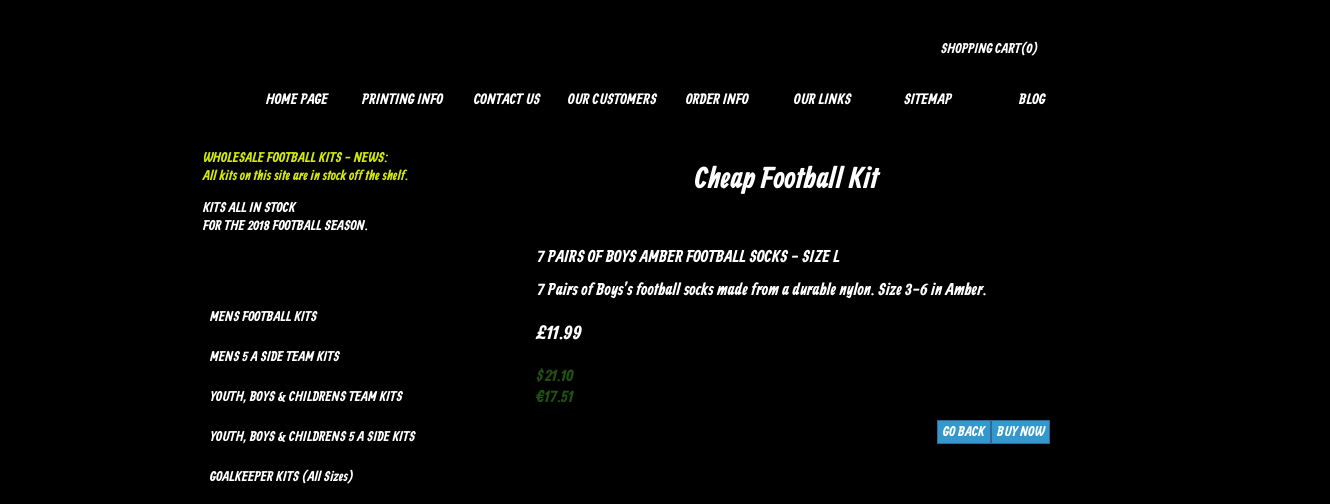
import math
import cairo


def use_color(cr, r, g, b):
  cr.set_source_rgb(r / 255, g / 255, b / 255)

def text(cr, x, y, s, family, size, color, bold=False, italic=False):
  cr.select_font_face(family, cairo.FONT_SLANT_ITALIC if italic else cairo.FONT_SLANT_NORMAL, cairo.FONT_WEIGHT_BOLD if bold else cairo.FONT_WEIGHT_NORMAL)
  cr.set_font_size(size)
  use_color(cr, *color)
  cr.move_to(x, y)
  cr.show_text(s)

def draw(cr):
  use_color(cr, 0, 0, 0)
  cr.paint()
  use_color(cr, 51, 153, 204)
  cr.rectangle(937.5, 420.5, 53, 23)
  cr.fill_preserve()
  use_color(cr, 51, 102, 153)
  cr.set_line_width(1)
  cr.stroke()
  use_color(cr, 51, 153, 204)
  cr.rectangle(991.5, 420.5, 58, 23)
  cr.fill_preserve()
  use_color(cr, 51, 102, 153)
  cr.stroke()
  text(cr, 941, 53, "SHOPPING CART(0)", "Allan", 14, (255, 255, 255), bold=True)
  text(cr, 203, 162, "WHOLESALE FOOTBALL KITS - NEWS:", "Allan", 14, (210, 232, 3), bold=True)
  text(cr, 203, 180, "All kits on this site are in stock off the shelf.", "Allan", 14, (210, 232, 3), bold=True)
  text(cr, 203, 212, "KITS ALL IN STOCK", "Allan", 14, (255, 255, 255), bold=True)
  text(cr, 203, 230, "FOR THE 2018 FOOTBALL SEASON.", "Allan", 14, (255, 255, 255), bold=True)
  text(cr, 695, 188, "Cheap Football Kit", "Allan", 30, (255, 255, 255), bold=True)
  text(cr, 537, 262, "7 PAIRS OF BOYS AMBER FOOTBALL SOCKS - SIZE L", "Allan", 17, (255, 255, 255), bold=True)
  text(cr, 537, 295, "7 Pairs of Boys’s football socks made from a durable nylon. Size 3-6 in Amber.", "Allan", 17, (255, 255, 255), bold=True)
  text(cr, 537, 339, "£11.99", "Allan", 20, (255, 255, 255), bold=True)
  text(cr, 537, 381, "$21.10", "Allan", 17, (32, 80, 20), bold=True)
  text(cr, 537, 402, "€17.51", "Allan", 17, (32, 80, 20), bold=True)
  text(cr, 943, 436, "GO BACK", "Allan", 14, (255, 255, 255), bold=True)
  text(cr, 997, 436, "BUY NOW", "Allan", 14, (255, 255, 255), bold=True)
  text(cr, 210, 321, "MENS FOOTBALL KITS", "Allan", 14, (255, 255, 255), bold=True)
  text(cr, 210, 361, "MENS 5 A SIDE TEAM KITS", "Allan", 14, (255, 255, 255), bold=True)
  text(cr, 210, 401, "YOUTH, BOYS & CHILDRENS TEAM KITS", "Allan", 14, (255, 255, 255), bold=True)
  text(cr, 210, 441, "YOUTH, BOYS & CHILDRENS 5 A SIDE KITS", "Allan", 14, (255, 255, 255), bold=True)
  text(cr, 210, 481, "GOALKEEPER KITS (All Sizes)", "Allan", 14, (255, 255, 255), bold=True)
  text(cr, 266, 104, "HOME PAGE", "Allan", 15, (255, 255, 255), bold=True)
  text(cr, 362, 104, "PRINTING INFO", "Allan", 15, (255, 255, 255), bold=True)
  text(cr, 474, 104, "CONTACT US", "Allan", 15, (255, 255, 255), bold=True)
  text(cr, 568, 104, "OUR CUSTOMERS", "Allan", 15, (255, 255, 255), bold=True)
  text(cr, 686, 104, "ORDER INFO", "Allan", 15, (255, 255, 255), bold=True)
  text(cr, 794, 104, "OUR LINKS", "Allan", 15, (255, 255, 255), bold=True)
  text(cr, 904, 104, "SITEMAP", "Allan", 15, (255, 255, 255), bold=True)
  text(cr, 1019, 104, "BLOG", "Allan", 15, (255, 255, 255), bold=True)


surface = cairo.ImageSurface(cairo.FORMAT_RGB24, 1330, 504)
cr = cairo.Context(surface)
options = cairo.FontOptions()
options.set_hint_metrics(cairo.HINT_METRICS_OFF)
options.set_hint_style(cairo.HINT_STYLE_NONE)
cr.set_font_options(options)
cr.set_miter_limit(4)
draw(cr)
surface.write_to_png("out.png")
